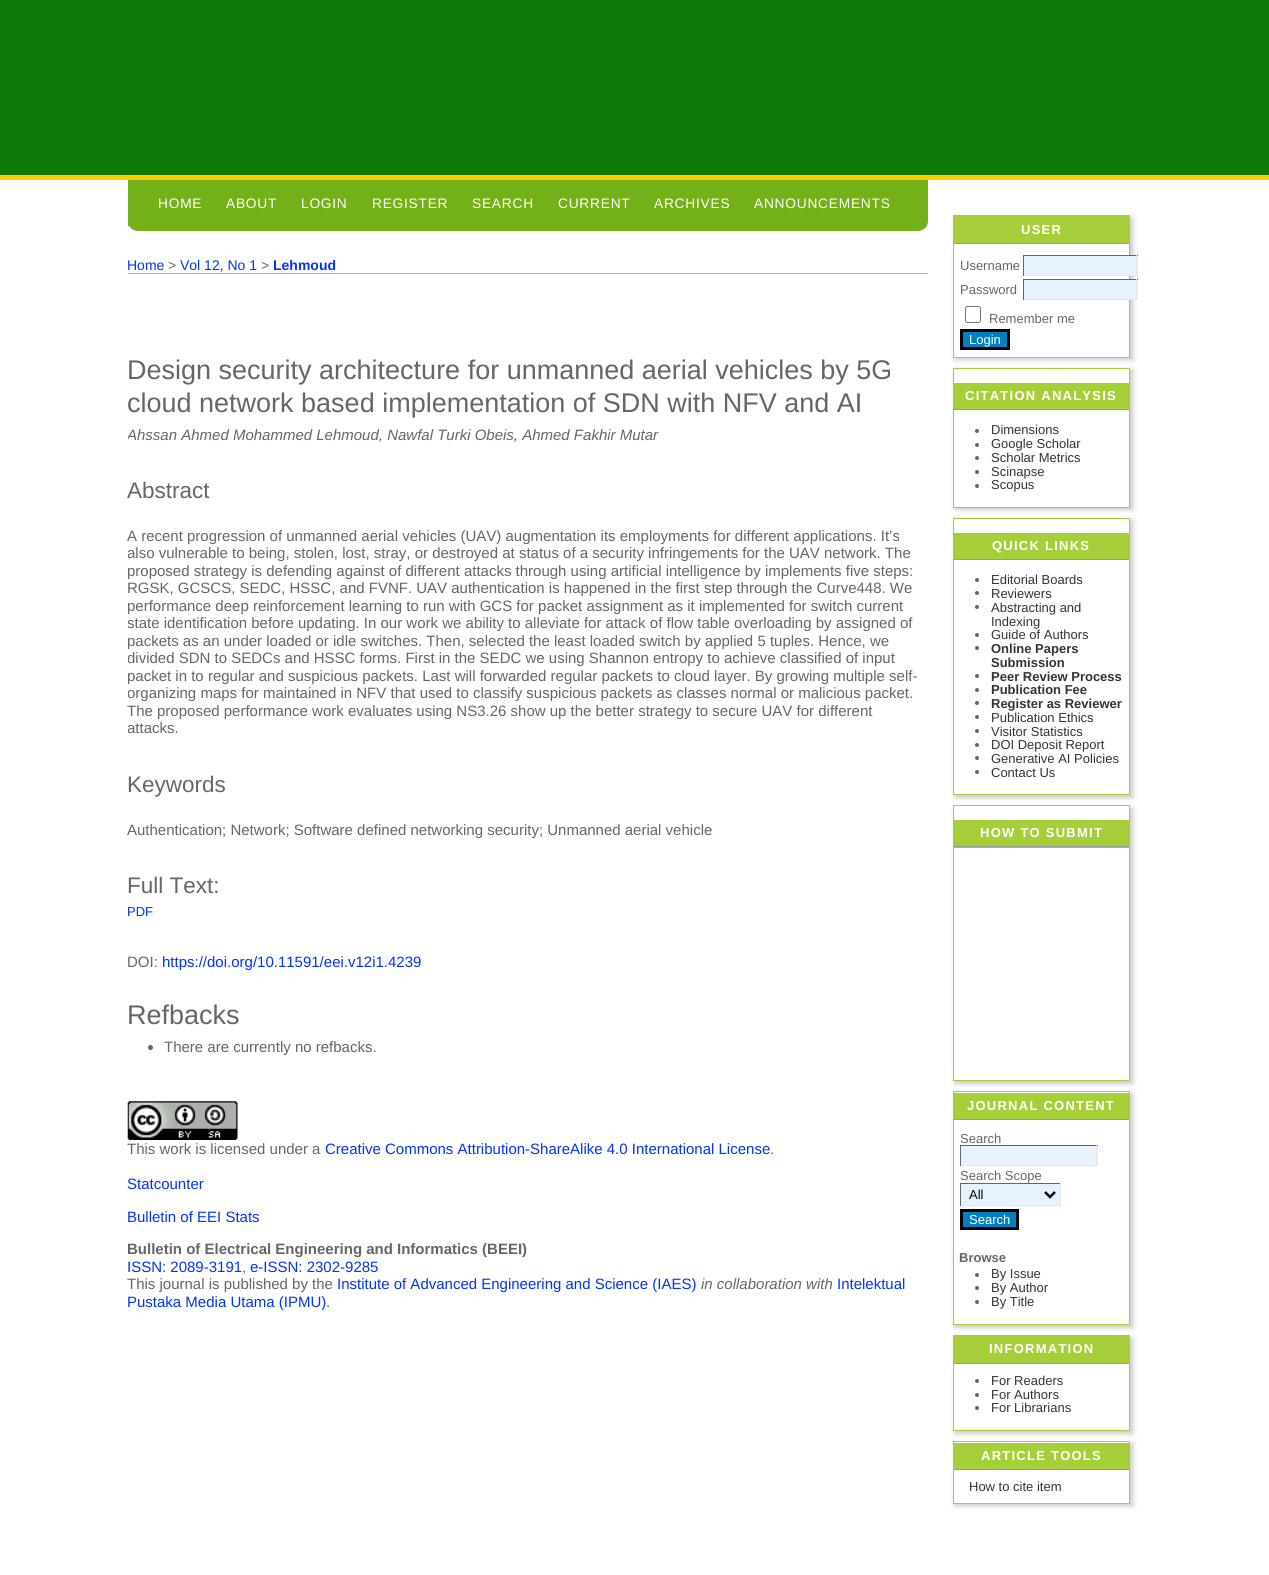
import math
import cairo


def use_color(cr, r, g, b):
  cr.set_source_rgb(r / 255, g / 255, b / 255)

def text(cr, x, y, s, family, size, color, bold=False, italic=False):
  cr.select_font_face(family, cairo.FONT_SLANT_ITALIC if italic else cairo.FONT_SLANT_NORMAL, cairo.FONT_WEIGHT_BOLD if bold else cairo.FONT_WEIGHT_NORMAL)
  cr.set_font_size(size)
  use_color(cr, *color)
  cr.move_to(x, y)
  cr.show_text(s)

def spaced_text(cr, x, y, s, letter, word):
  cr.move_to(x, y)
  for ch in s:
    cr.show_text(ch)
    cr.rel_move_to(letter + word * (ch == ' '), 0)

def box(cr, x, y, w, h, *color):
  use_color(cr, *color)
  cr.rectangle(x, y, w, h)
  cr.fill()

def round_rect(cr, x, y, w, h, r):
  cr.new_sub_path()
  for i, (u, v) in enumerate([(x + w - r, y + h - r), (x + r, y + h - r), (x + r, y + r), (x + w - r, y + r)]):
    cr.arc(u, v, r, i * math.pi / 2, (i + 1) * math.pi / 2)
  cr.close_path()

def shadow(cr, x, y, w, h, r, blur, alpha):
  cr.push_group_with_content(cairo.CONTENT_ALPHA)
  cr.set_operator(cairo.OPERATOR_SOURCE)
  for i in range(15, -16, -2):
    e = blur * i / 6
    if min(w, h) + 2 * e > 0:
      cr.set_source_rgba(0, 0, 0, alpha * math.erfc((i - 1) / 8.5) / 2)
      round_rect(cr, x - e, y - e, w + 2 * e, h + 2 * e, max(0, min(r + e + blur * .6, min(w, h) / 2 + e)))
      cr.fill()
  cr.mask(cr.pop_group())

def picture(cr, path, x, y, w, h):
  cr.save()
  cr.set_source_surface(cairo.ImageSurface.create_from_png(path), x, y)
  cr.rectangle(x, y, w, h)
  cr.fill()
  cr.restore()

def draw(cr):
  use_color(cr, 255, 255, 255)
  cr.paint()
  box(cr, 0, 0, 1269, 175, 15, 122, 8)
  box(cr, 0, 175, 1269, 5, 255, 204, 0)
  use_color(cr, 116, 177, 24)
  cr.new_path()
  cr.move_to(128, 180)
  cr.line_to(928, 180)
  cr.line_to(928, 221)
  cr.curve_to(928, 226.5, 923.5, 231, 918, 231)
  cr.line_to(138, 231)
  cr.curve_to(132.5, 231, 128, 226.5, 128, 221)
  cr.close_path()
  cr.fill()
  box(cr, 926, 225, 1, 1, 116, 177, 24)
  box(cr, 128, 221, 1, 5, 116, 177, 24)
  box(cr, 128, 273, 800, 1, 173, 209, 31)
  use_color(cr, 102, 102, 102)
  cr.arc(150.5, 1047.5, 2.5, 0, 2 * math.pi)
  cr.fill()
  picture(cr, "img_01.png", 127, 1101, 111, 39)
  use_color(cr, 202, 202, 202)
  shadow(cr, 955, 218, 178, 142, 0, 2.5, 1)
  box(cr, 954, 244, 175, 113, 255, 255, 255)
  cr.rectangle(953.5, 215.5, 176, 142)
  use_color(cr, 166, 206, 57)
  cr.set_line_width(1)
  cr.stroke()
  box(cr, 954, 216, 175, 27, 166, 206, 57)
  box(cr, 954, 243, 175, 1, 153, 153, 153)
  box(cr, 1024, 256, 114, 19, 230, 242, 255)
  box(cr, 1023, 255, 115, 1, 102, 102, 102)
  box(cr, 1136, 255, 1, 21, 232, 232, 225)
  box(cr, 1023, 275, 115, 1, 232, 232, 225)
  box(cr, 1023, 255, 1, 21, 102, 102, 102)
  box(cr, 1024, 280, 114, 19, 230, 242, 255)
  box(cr, 1023, 279, 115, 1, 102, 102, 102)
  box(cr, 1136, 279, 1, 21, 232, 232, 225)
  box(cr, 1023, 299, 115, 1, 232, 232, 225)
  box(cr, 1023, 279, 1, 21, 102, 102, 102)
  round_rect(cr, 965.5, 306.5, 15, 16, 2)
  use_color(cr, 118, 118, 118)
  cr.stroke()
  use_color(cr, 0, 128, 192)
  cr.rectangle(961.5, 330.5, 47, 18)
  cr.fill_preserve()
  use_color(cr, 0, 0, 0)
  cr.set_line_width(3)
  cr.stroke()
  use_color(cr, 202, 202, 202)
  shadow(cr, 955, 370, 178, 140, 0, 2.5, 1)
  use_color(cr, 255, 255, 255)
  cr.rectangle(953.5, 368.5, 176, 139)
  cr.fill_preserve()
  use_color(cr, 166, 206, 57)
  cr.set_line_width(1)
  cr.stroke()
  box(cr, 954, 383, 175, 26, 166, 206, 57)
  box(cr, 954, 409, 175, 1, 153, 153, 153)
  use_color(cr, 102, 102, 102)
  cr.arc(977, 431, 2, 0, 2 * math.pi)
  cr.fill()
  cr.arc(977, 445, 2, 0, 2 * math.pi)
  cr.fill()
  cr.arc(977, 458, 2, 0, 2 * math.pi)
  cr.fill()
  cr.arc(977, 472, 2, 0, 2 * math.pi)
  cr.fill()
  cr.arc(977, 486, 2, 0, 2 * math.pi)
  cr.fill()
  cr.save()
  cr.set_fill_rule(cairo.FILL_RULE_EVEN_ODD)
  cr.new_path()
  cr.move_to(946, 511)
  cr.line_to(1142, 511)
  cr.line_to(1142, 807)
  cr.line_to(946, 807)
  cr.close_path()
  cr.move_to(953, 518)
  cr.line_to(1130, 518)
  cr.line_to(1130, 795)
  cr.line_to(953, 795)
  cr.close_path()
  cr.clip()
  use_color(cr, 202, 202, 202)
  shadow(cr, 955, 520, 178, 278, 0, 2.5, 1)
  cr.restore()
  cr.rectangle(953.5, 518.5, 176, 276)
  use_color(cr, 166, 206, 57)
  cr.stroke()
  box(cr, 954, 533, 175, 26, 166, 206, 57)
  box(cr, 954, 559, 175, 1, 153, 153, 153)
  use_color(cr, 102, 102, 102)
  cr.arc(977, 580, 2, 0, 2 * math.pi)
  cr.fill()
  cr.arc(977, 593, 2, 0, 2 * math.pi)
  cr.fill()
  cr.arc(977, 607, 2, 0, 2 * math.pi)
  cr.fill()
  cr.arc(977, 635, 2, 0, 2 * math.pi)
  cr.fill()
  cr.arc(977, 648, 2, 0, 2 * math.pi)
  cr.fill()
  cr.arc(977, 676, 2, 0, 2 * math.pi)
  cr.fill()
  cr.arc(977, 690, 2, 0, 2 * math.pi)
  cr.fill()
  cr.arc(977, 703, 2, 0, 2 * math.pi)
  cr.fill()
  cr.arc(977, 717, 2, 0, 2 * math.pi)
  cr.fill()
  cr.arc(977, 731, 2, 0, 2 * math.pi)
  cr.fill()
  cr.arc(977, 745, 2, 0, 2 * math.pi)
  cr.fill()
  cr.arc(977, 758, 2, 0, 2 * math.pi)
  cr.fill()
  cr.arc(977, 772, 2, 0, 2 * math.pi)
  cr.fill()
  cr.save()
  cr.set_fill_rule(cairo.FILL_RULE_EVEN_ODD)
  cr.new_path()
  cr.move_to(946, 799)
  cr.line_to(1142, 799)
  cr.line_to(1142, 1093)
  cr.line_to(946, 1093)
  cr.close_path()
  cr.move_to(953, 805)
  cr.line_to(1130, 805)
  cr.line_to(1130, 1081)
  cr.line_to(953, 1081)
  cr.close_path()
  cr.clip()
  use_color(cr, 202, 202, 202)
  shadow(cr, 955, 808, 178, 276, 0, 2.5, 1)
  cr.restore()
  cr.rectangle(953.5, 805.5, 176, 275)
  use_color(cr, 166, 206, 57)
  cr.stroke()
  box(cr, 954, 820, 175, 28, 166, 206, 57)
  box(cr, 954, 846, 175, 1, 153, 153, 153)
  use_color(cr, 202, 202, 202)
  shadow(cr, 955, 1094, 178, 234, 0, 2.5, 1)
  use_color(cr, 255, 255, 255)
  cr.rectangle(953.5, 1091.5, 176, 233)
  cr.fill_preserve()
  use_color(cr, 166, 206, 57)
  cr.stroke()
  box(cr, 954, 1093, 175, 26, 166, 206, 57)
  box(cr, 954, 1119, 175, 1, 153, 153, 153)
  box(cr, 961, 1146, 137, 19, 230, 242, 255)
  box(cr, 960, 1145, 138, 1, 102, 102, 102)
  box(cr, 1096, 1145, 1, 21, 232, 232, 225)
  box(cr, 960, 1165, 138, 1, 232, 232, 225)
  box(cr, 960, 1145, 1, 21, 102, 102, 102)
  box(cr, 961, 1184, 99, 21, 230, 242, 255)
  box(cr, 960, 1183, 101, 1, 102, 102, 102)
  box(cr, 1060, 1183, 1, 23, 232, 232, 225)
  box(cr, 960, 1205, 101, 1, 232, 232, 225)
  box(cr, 960, 1183, 1, 23, 102, 102, 102)
  cr.new_path()
  cr.move_to(1045, 1192)
  cr.line_to(1050, 1197)
  cr.line_to(1055, 1192)
  use_color(cr, 0, 0, 0)
  cr.set_line_width(2.5)
  cr.stroke()
  use_color(cr, 0, 128, 192)
  cr.rectangle(961.5, 1210.5, 56, 18)
  cr.fill_preserve()
  use_color(cr, 0, 0, 0)
  cr.set_line_width(3)
  cr.stroke()
  use_color(cr, 102, 102, 102)
  cr.arc(977, 1275, 2, 0, 2 * math.pi)
  cr.fill()
  cr.arc(977, 1288, 2, 0, 2 * math.pi)
  cr.fill()
  cr.arc(977, 1302, 2, 0, 2 * math.pi)
  cr.fill()
  cr.save()
  cr.set_fill_rule(cairo.FILL_RULE_EVEN_ODD)
  cr.new_path()
  cr.move_to(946, 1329)
  cr.line_to(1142, 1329)
  cr.line_to(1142, 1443)
  cr.line_to(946, 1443)
  cr.close_path()
  cr.move_to(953, 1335)
  cr.line_to(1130, 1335)
  cr.line_to(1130, 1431)
  cr.line_to(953, 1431)
  cr.close_path()
  cr.clip()
  use_color(cr, 202, 202, 202)
  shadow(cr, 955, 1338, 178, 96, 0, 2.5, 1)
  cr.restore()
  cr.rectangle(953.5, 1335.5, 176, 95)
  use_color(cr, 166, 206, 57)
  cr.set_line_width(1)
  cr.stroke()
  box(cr, 954, 1336, 175, 27, 166, 206, 57)
  box(cr, 954, 1363, 175, 1, 153, 153, 153)
  use_color(cr, 102, 102, 102)
  cr.arc(977, 1381, 2, 0, 2 * math.pi)
  cr.fill()
  cr.arc(977, 1395, 2, 0, 2 * math.pi)
  cr.fill()
  cr.arc(977, 1408, 2, 0, 2 * math.pi)
  cr.fill()
  use_color(cr, 202, 202, 202)
  shadow(cr, 955, 1444, 178, 62, 0, 2.5, 1)
  use_color(cr, 255, 255, 255)
  cr.rectangle(953.5, 1441.5, 176, 62)
  cr.fill_preserve()
  use_color(cr, 166, 206, 57)
  cr.stroke()
  box(cr, 954, 1443, 175, 26, 166, 206, 57)
  box(cr, 954, 1469, 175, 1, 153, 153, 153)
  cr.select_font_face("Liberation Sans")
  cr.set_font_size(13.75)
  use_color(cr, 255, 255, 255)
  spaced_text(cr, 158, 208, "HOME", 0.75, 0)
  spaced_text(cr, 226, 208, "ABOUT", 0.75, 0)
  spaced_text(cr, 301, 208, "LOGIN", 0.75, 0)
  spaced_text(cr, 372, 208, "REGISTER", 0.75, 0)
  spaced_text(cr, 472, 208, "SEARCH", 0.75, 0)
  spaced_text(cr, 558, 208, "CURRENT", 0.75, 0)
  spaced_text(cr, 654, 208, "ARCHIVES", 0.75, 0)
  spaced_text(cr, 754, 208, "ANNOUNCEMENTS", 0.75, 0)
  text(cr, 127, 270, "Home", "Liberation Sans", 14, (0, 51, 255))
  text(cr, 168, 270, ">", "Liberation Sans", 14, (102, 102, 102))
  text(cr, 180, 270, "Vol 12, No 1", "Liberation Sans", 14, (0, 51, 255))
  text(cr, 261, 270, ">", "Liberation Sans", 14, (102, 102, 102))
  text(cr, 273, 270, "Lehmoud", "Liberation Sans", 14, (0, 51, 255), bold=True)
  text(cr, 127, 379, "Design security architecture for unmanned aerial vehicles by 5G", "Liberation Sans", 27, (102, 102, 102))
  text(cr, 127, 412, "cloud network based implementation of SDN with NFV and AI", "Liberation Sans", 27, (102, 102, 102))
  cr.save()
  cr.rectangle(128, 180, 800, 1185)
  cr.clip()
  text(cr, 127, 440, "Ahssan Ahmed Mohammed Lehmoud, Nawfal Turki Obeis, Ahmed Fakhir Mutar", "Liberation Sans", 15, (102, 102, 102), italic=True)
  cr.restore()
  text(cr, 127, 498, "Abstract", "Liberation Sans", 22.5, (102, 102, 102))
  text(cr, 127, 541, "A recent progression of unmanned aerial vehicles (UAV) augmentation its employments for different applications. It’s", "Liberation Sans", 15, (102, 102, 102))
  cr.save()
  cr.rectangle(128, 180, 800, 1185)
  cr.clip()
  text(cr, 127, 558, "also vulnerable to being, stolen, lost, stray, or destroyed at status of a security infringements for the UAV network. The", "Liberation Sans", 15, (102, 102, 102))
  cr.restore()
  text(cr, 127, 576, "proposed strategy is defending against of different attacks through using artificial intelligence by implements five steps:", "Liberation Sans", 15, (102, 102, 102))
  text(cr, 127, 593, "RGSK, GCSCS, SEDC, HSSC, and FVNF. UAV authentication is happened in the first step through the Curve448. We", "Liberation Sans", 15, (102, 102, 102))
  text(cr, 127, 611, "performance deep reinforcement learning to run with GCS for packet assignment as it implemented for switch current", "Liberation Sans", 15, (102, 102, 102))
  cr.save()
  cr.rectangle(128, 180, 800, 1185)
  cr.clip()
  text(cr, 127, 628, "state identification before updating. In our work we ability to alleviate for attack of flow table overloading by assigned of", "Liberation Sans", 15, (102, 102, 102))
  cr.restore()
  text(cr, 127, 646, "packets as an under loaded or idle switches. Then, selected the least loaded switch by applied 5 tuples. Hence, we", "Liberation Sans", 15, (102, 102, 102))
  cr.save()
  cr.rectangle(128, 180, 800, 1185)
  cr.clip()
  text(cr, 127, 663, "divided SDN to SEDCs and HSSC forms. First in the SEDC we using Shannon entropy to achieve classified of input", "Liberation Sans", 15, (102, 102, 102))
  cr.restore()
  text(cr, 127, 681, "packet in to regular and suspicious packets. Last will forwarded regular packets to cloud layer. By growing multiple self-", "Liberation Sans", 15, (102, 102, 102))
  cr.save()
  cr.rectangle(128, 180, 800, 1185)
  cr.clip()
  text(cr, 127, 698, "organizing maps for maintained in NFV that used to classify suspicious packets as classes normal or malicious packet.", "Liberation Sans", 15, (102, 102, 102))
  cr.restore()
  text(cr, 127, 716, "The proposed performance work evaluates using NS3.26 show up the better strategy to secure UAV for different", "Liberation Sans", 15, (102, 102, 102))
  cr.save()
  cr.rectangle(128, 180, 800, 1185)
  cr.clip()
  text(cr, 127, 733, "attacks.", "Liberation Sans", 15, (102, 102, 102))
  cr.restore()
  text(cr, 127, 792, "Keywords", "Liberation Sans", 22.5, (102, 102, 102))
  text(cr, 127, 835, "Authentication; Network; Software defined networking security; Unmanned aerial vehicle", "Liberation Sans", 15, (102, 102, 102))
  text(cr, 127, 893, "Full Text:", "Liberation Sans", 22.5, (102, 102, 102))
  text(cr, 127, 916, "PDF", "Liberation Sans", 13, (0, 51, 255))
  text(cr, 127, 967, "DOI:", "Liberation Sans", 15, (102, 102, 102))
  text(cr, 162, 967, "https://doi.org/10.11591/eei.v12i1.4239", "Liberation Sans", 15, (0, 51, 255))
  text(cr, 127, 1024, "Refbacks", "Liberation Sans", 27, (102, 102, 102))
  text(cr, 164, 1052, "There are currently no refbacks.", "Liberation Sans", 15, (102, 102, 102))
  text(cr, 127, 1154, "This work is licensed under a", "Liberation Sans", 15, (102, 102, 102))
  text(cr, 325, 1154, "Creative Commons Attribution-ShareAlike 4.0 International License", "Liberation Sans", 15, (0, 51, 255))
  text(cr, 770, 1154, ".", "Liberation Sans", 15, (102, 102, 102))
  text(cr, 127, 1189, "Statcounter", "Liberation Sans", 15, (0, 51, 255))
  text(cr, 127, 1222, "Bulletin of EEI Stats", "Liberation Sans", 15, (0, 51, 255))
  text(cr, 127, 1254, "Bulletin of Electrical Engineering and Informatics (BEEI)", "Liberation Sans", 15, (102, 102, 102), bold=True)
  text(cr, 127, 1272, "ISSN: 2089-3191", "Liberation Sans", 15, (0, 51, 255))
  text(cr, 242, 1272, ",", "Liberation Sans", 15, (102, 102, 102))
  text(cr, 250, 1272, "e-ISSN: 2302-9285", "Liberation Sans", 15, (0, 51, 255))
  text(cr, 127, 1289, "This journal is published by the", "Liberation Sans", 15, (102, 102, 102))
  text(cr, 337, 1289, "Institute of Advanced Engineering and Science (IAES)", "Liberation Sans", 15, (0, 51, 255))
  text(cr, 701, 1289, "in collaboration with", "Liberation Sans", 15, (102, 102, 102), italic=True)
  text(cr, 837, 1289, "Intelektual", "Liberation Sans", 15, (0, 51, 255))
  text(cr, 127, 1307, "Pustaka Media Utama (IPMU)", "Liberation Sans", 15, (0, 51, 255))
  text(cr, 326, 1307, ".", "Liberation Sans", 15, (102, 102, 102))
  cr.select_font_face("Liberation Sans", cairo.FONT_SLANT_NORMAL, cairo.FONT_WEIGHT_BOLD)
  cr.set_font_size(13)
  use_color(cr, 255, 255, 255)
  spaced_text(cr, 1021, 234, "USER", 1.25, 0)
  text(cr, 960, 270, "Username", "Liberation Sans", 13, (102, 102, 102))
  text(cr, 960, 294, "Password", "Liberation Sans", 13, (102, 102, 102))
  text(cr, 989, 323, "Remember me", "Liberation Sans", 13, (102, 102, 102))
  text(cr, 969, 344, "Login", "Liberation Sans", 13, (255, 255, 255))
  cr.select_font_face("Liberation Sans", cairo.FONT_SLANT_NORMAL, cairo.FONT_WEIGHT_BOLD)
  spaced_text(cr, 965, 400, "CITATION ANALYSIS", 1.25, 0)
  text(cr, 991, 434, "Dimensions", "Liberation Sans", 13, (51, 51, 51))
  text(cr, 991, 448, "Google Scholar", "Liberation Sans", 13, (51, 51, 51))
  text(cr, 991, 462, "Scholar Metrics", "Liberation Sans", 13, (51, 51, 51))
  text(cr, 991, 476, "Scinapse", "Liberation Sans", 13, (51, 51, 51))
  text(cr, 991, 489, "Scopus", "Liberation Sans", 13, (51, 51, 51))
  cr.select_font_face("Liberation Sans", cairo.FONT_SLANT_NORMAL, cairo.FONT_WEIGHT_BOLD)
  use_color(cr, 255, 255, 255)
  spaced_text(cr, 992, 550, "QUICK LINKS", 1.25, 0)
  text(cr, 991, 584, "Editorial Boards", "Liberation Sans", 13, (51, 51, 51))
  text(cr, 991, 598, "Reviewers", "Liberation Sans", 13, (51, 51, 51))
  text(cr, 991, 612, "Abstracting and", "Liberation Sans", 13, (51, 51, 51))
  text(cr, 991, 626, "Indexing", "Liberation Sans", 13, (51, 51, 51))
  text(cr, 991, 639, "Guide of Authors", "Liberation Sans", 13, (51, 51, 51))
  text(cr, 991, 653, "Online Papers", "Liberation Sans", 13, (51, 51, 51), bold=True)
  text(cr, 991, 667, "Submission", "Liberation Sans", 13, (51, 51, 51), bold=True)
  text(cr, 991, 681, "Peer Review Process", "Liberation Sans", 13, (51, 51, 51), bold=True)
  text(cr, 991, 694, "Publication Fee", "Liberation Sans", 13, (51, 51, 51), bold=True)
  text(cr, 991, 708, "Register as Reviewer", "Liberation Sans", 13, (51, 51, 51), bold=True)
  text(cr, 991, 722, "Publication Ethics", "Liberation Sans", 13, (51, 51, 51))
  text(cr, 991, 736, "Visitor Statistics", "Liberation Sans", 13, (51, 51, 51))
  text(cr, 991, 749, "DOI Deposit Report", "Liberation Sans", 13, (51, 51, 51))
  text(cr, 991, 763, "Generative AI Policies", "Liberation Sans", 13, (51, 51, 51))
  text(cr, 991, 777, "Contact Us", "Liberation Sans", 13, (51, 51, 51))
  cr.select_font_face("Liberation Sans", cairo.FONT_SLANT_NORMAL, cairo.FONT_WEIGHT_BOLD)
  use_color(cr, 255, 255, 255)
  spaced_text(cr, 980, 837, "HOW TO SUBMIT", 1.25, 0)
  spaced_text(cr, 967, 1110, "JOURNAL CONTENT", 1.25, 0)
  text(cr, 960, 1143, "Search", "Liberation Sans", 13, (102, 102, 102))
  text(cr, 960, 1180, "Search Scope", "Liberation Sans", 13, (102, 102, 102))
  text(cr, 969, 1199, "All", "Liberation Sans", 13, (0, 0, 0))
  text(cr, 969, 1224, "Search", "Liberation Sans", 13, (255, 255, 255))
  text(cr, 959, 1262, "Browse", "Liberation Sans", 13, (102, 102, 102), bold=True)
  text(cr, 991, 1278, "By Issue", "Liberation Sans", 13, (51, 51, 51))
  text(cr, 991, 1292, "By Author", "Liberation Sans", 13, (51, 51, 51))
  text(cr, 991, 1306, "By Title", "Liberation Sans", 13, (51, 51, 51))
  cr.select_font_face("Liberation Sans", cairo.FONT_SLANT_NORMAL, cairo.FONT_WEIGHT_BOLD)
  use_color(cr, 255, 255, 255)
  spaced_text(cr, 989, 1353, "INFORMATION", 1.25, 0)
  text(cr, 991, 1385, "For Readers", "Liberation Sans", 13, (51, 51, 51))
  text(cr, 991, 1399, "For Authors", "Liberation Sans", 13, (51, 51, 51))
  text(cr, 991, 1412, "For Librarians", "Liberation Sans", 13, (51, 51, 51))
  cr.select_font_face("Liberation Sans", cairo.FONT_SLANT_NORMAL, cairo.FONT_WEIGHT_BOLD)
  use_color(cr, 255, 255, 255)
  spaced_text(cr, 981, 1460, "ARTICLE TOOLS", 1.25, 0)
  text(cr, 969, 1491, "How to cite item", "Liberation Sans", 13, (51, 51, 51))


surface = cairo.ImageSurface(cairo.FORMAT_RGB24, 1269, 1575)
cr = cairo.Context(surface)
options = cairo.FontOptions()
options.set_hint_metrics(cairo.HINT_METRICS_OFF)
options.set_hint_style(cairo.HINT_STYLE_NONE)
cr.set_font_options(options)
cr.set_miter_limit(4)
draw(cr)
surface.write_to_png("out.png")
